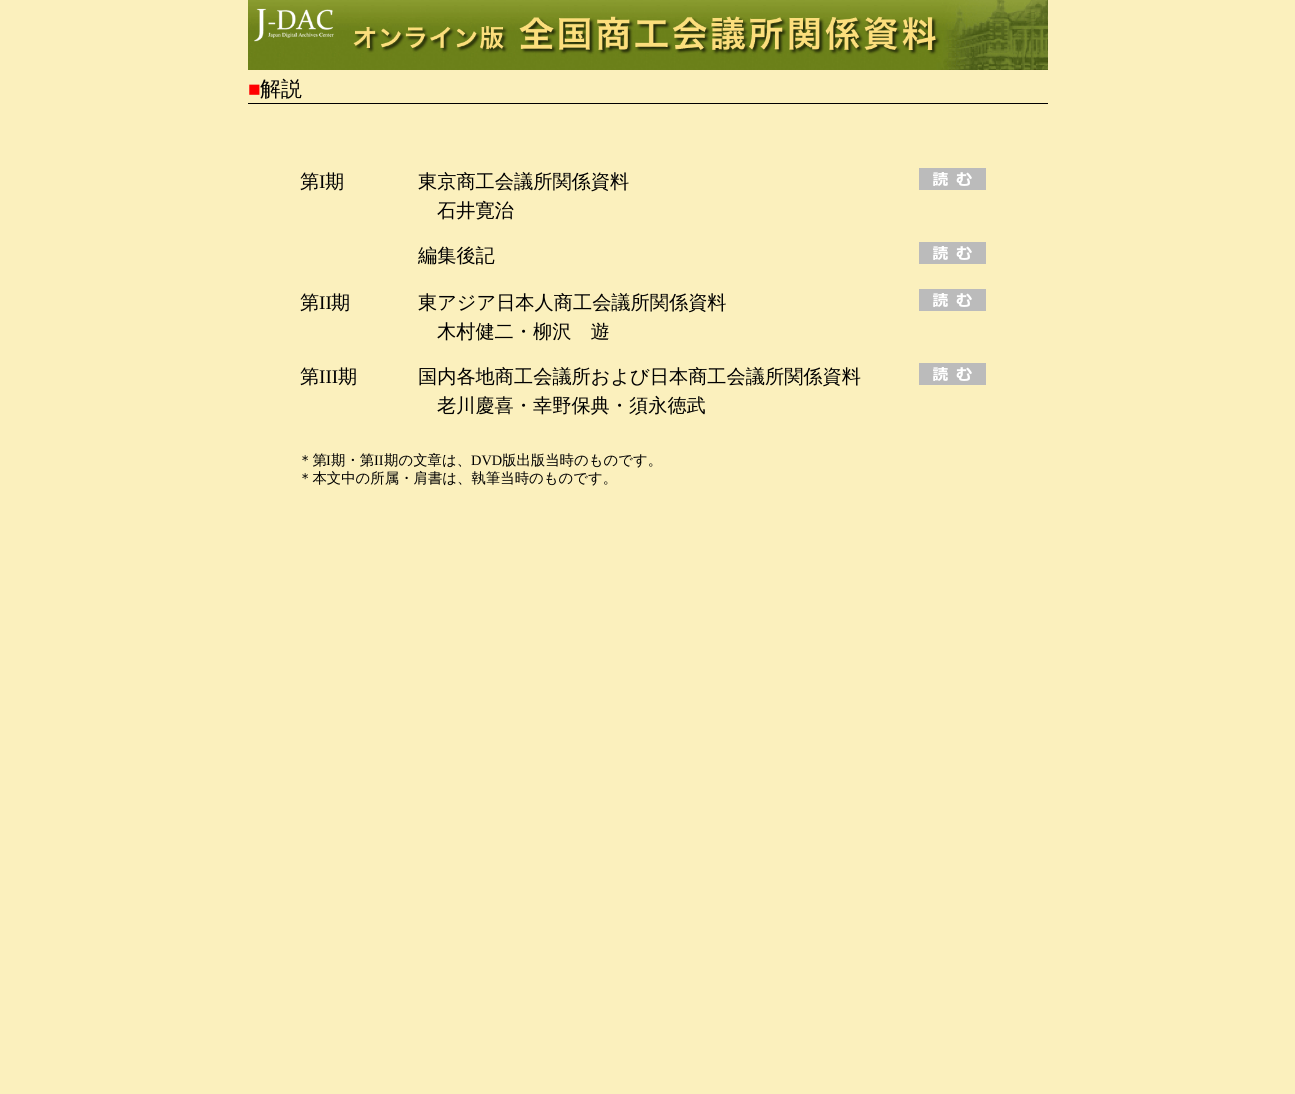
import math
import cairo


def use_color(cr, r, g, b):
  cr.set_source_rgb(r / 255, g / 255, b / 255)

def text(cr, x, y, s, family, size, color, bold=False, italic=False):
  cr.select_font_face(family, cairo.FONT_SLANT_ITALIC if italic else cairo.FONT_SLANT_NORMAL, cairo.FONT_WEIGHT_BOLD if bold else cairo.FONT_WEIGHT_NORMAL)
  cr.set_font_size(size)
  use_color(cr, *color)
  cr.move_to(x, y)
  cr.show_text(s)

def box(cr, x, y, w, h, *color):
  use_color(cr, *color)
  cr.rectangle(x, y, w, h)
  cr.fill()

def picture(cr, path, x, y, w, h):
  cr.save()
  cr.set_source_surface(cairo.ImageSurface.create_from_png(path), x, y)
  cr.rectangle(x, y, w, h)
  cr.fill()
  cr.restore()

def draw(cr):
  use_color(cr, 251, 240, 189)
  cr.paint()
  picture(cr, "img_01.png", 248, 0, 800, 70)
  box(cr, 248, 103, 800, 1, 0, 0, 0)
  picture(cr, "img_02.png", 919, 168, 67, 22)
  picture(cr, "img_02.png", 919, 242, 67, 22)
  picture(cr, "img_02.png", 919, 289, 67, 22)
  picture(cr, "img_02.png", 919, 363, 67, 22)
  text(cr, 248, 96, "■", "Liberation Serif", 21, (255, 0, 0))
  text(cr, 260, 96, "解説", "WenQuanYi Zen Hei Medium", 21, (0, 0, 0))
  text(cr, 300, 188, "第", "WenQuanYi Zen Hei Medium", 19.2, (0, 0, 0))
  text(cr, 319, 188, "I", "Liberation Serif", 19.2, (0, 0, 0))
  text(cr, 325, 188, "期", "WenQuanYi Zen Hei Medium", 19.2, (0, 0, 0))
  text(cr, 418, 188, "東京商工会議所関係資料", "WenQuanYi Zen Hei Medium", 19.2, (0, 0, 0))
  text(cr, 437, 217, "石井寛治", "WenQuanYi Zen Hei Medium", 19.2, (0, 0, 0))
  text(cr, 418, 262, "編集後記", "WenQuanYi Zen Hei Medium", 19.2, (0, 0, 0))
  text(cr, 300, 309, "第", "WenQuanYi Zen Hei Medium", 19.2, (0, 0, 0))
  text(cr, 319, 309, "II", "Liberation Serif", 19.2, (0, 0, 0))
  text(cr, 331, 309, "期", "WenQuanYi Zen Hei Medium", 19.2, (0, 0, 0))
  text(cr, 418, 309, "東アジア日本人商工会議所関係資料", "WenQuanYi Zen Hei Medium", 19.2, (0, 0, 0))
  text(cr, 437, 338, "木村健二・柳沢　遊", "WenQuanYi Zen Hei Medium", 19.2, (0, 0, 0))
  text(cr, 300, 383, "第", "WenQuanYi Zen Hei Medium", 19.2, (0, 0, 0))
  text(cr, 319, 383, "III", "Liberation Serif", 19.2, (0, 0, 0))
  text(cr, 338, 383, "期", "WenQuanYi Zen Hei Medium", 19.2, (0, 0, 0))
  text(cr, 418, 383, "国内各地商工会議所および日本商工会議所関係資料", "WenQuanYi Zen Hei Medium", 19.2, (0, 0, 0))
  text(cr, 437, 412, "老川慶喜・幸野保典・須永徳武", "WenQuanYi Zen Hei Medium", 19.2, (0, 0, 0))
  text(cr, 298, 465, "＊第", "WenQuanYi Zen Hei Medium", 14.4, (0, 0, 0))
  text(cr, 326, 465, "I", "Liberation Serif", 14.4, (0, 0, 0))
  text(cr, 331, 465, "期・第", "WenQuanYi Zen Hei Medium", 14.4, (0, 0, 0))
  text(cr, 374, 465, "II", "Liberation Serif", 14.4, (0, 0, 0))
  text(cr, 384, 465, "期の文章は、", "WenQuanYi Zen Hei Medium", 14.4, (0, 0, 0))
  text(cr, 471, 465, "DVD", "Liberation Serif", 14.4, (0, 0, 0))
  text(cr, 502, 465, "版出版当時のものです。", "WenQuanYi Zen Hei Medium", 14.4, (0, 0, 0))
  text(cr, 298, 483, "＊本文中の所属・肩書は、執筆当時のものです。", "WenQuanYi Zen Hei Medium", 14.4, (0, 0, 0))


surface = cairo.ImageSurface(cairo.FORMAT_RGB24, 1295, 1094)
cr = cairo.Context(surface)
options = cairo.FontOptions()
options.set_hint_metrics(cairo.HINT_METRICS_OFF)
options.set_hint_style(cairo.HINT_STYLE_NONE)
cr.set_font_options(options)
cr.set_miter_limit(4)
draw(cr)
surface.write_to_png("out.png")
